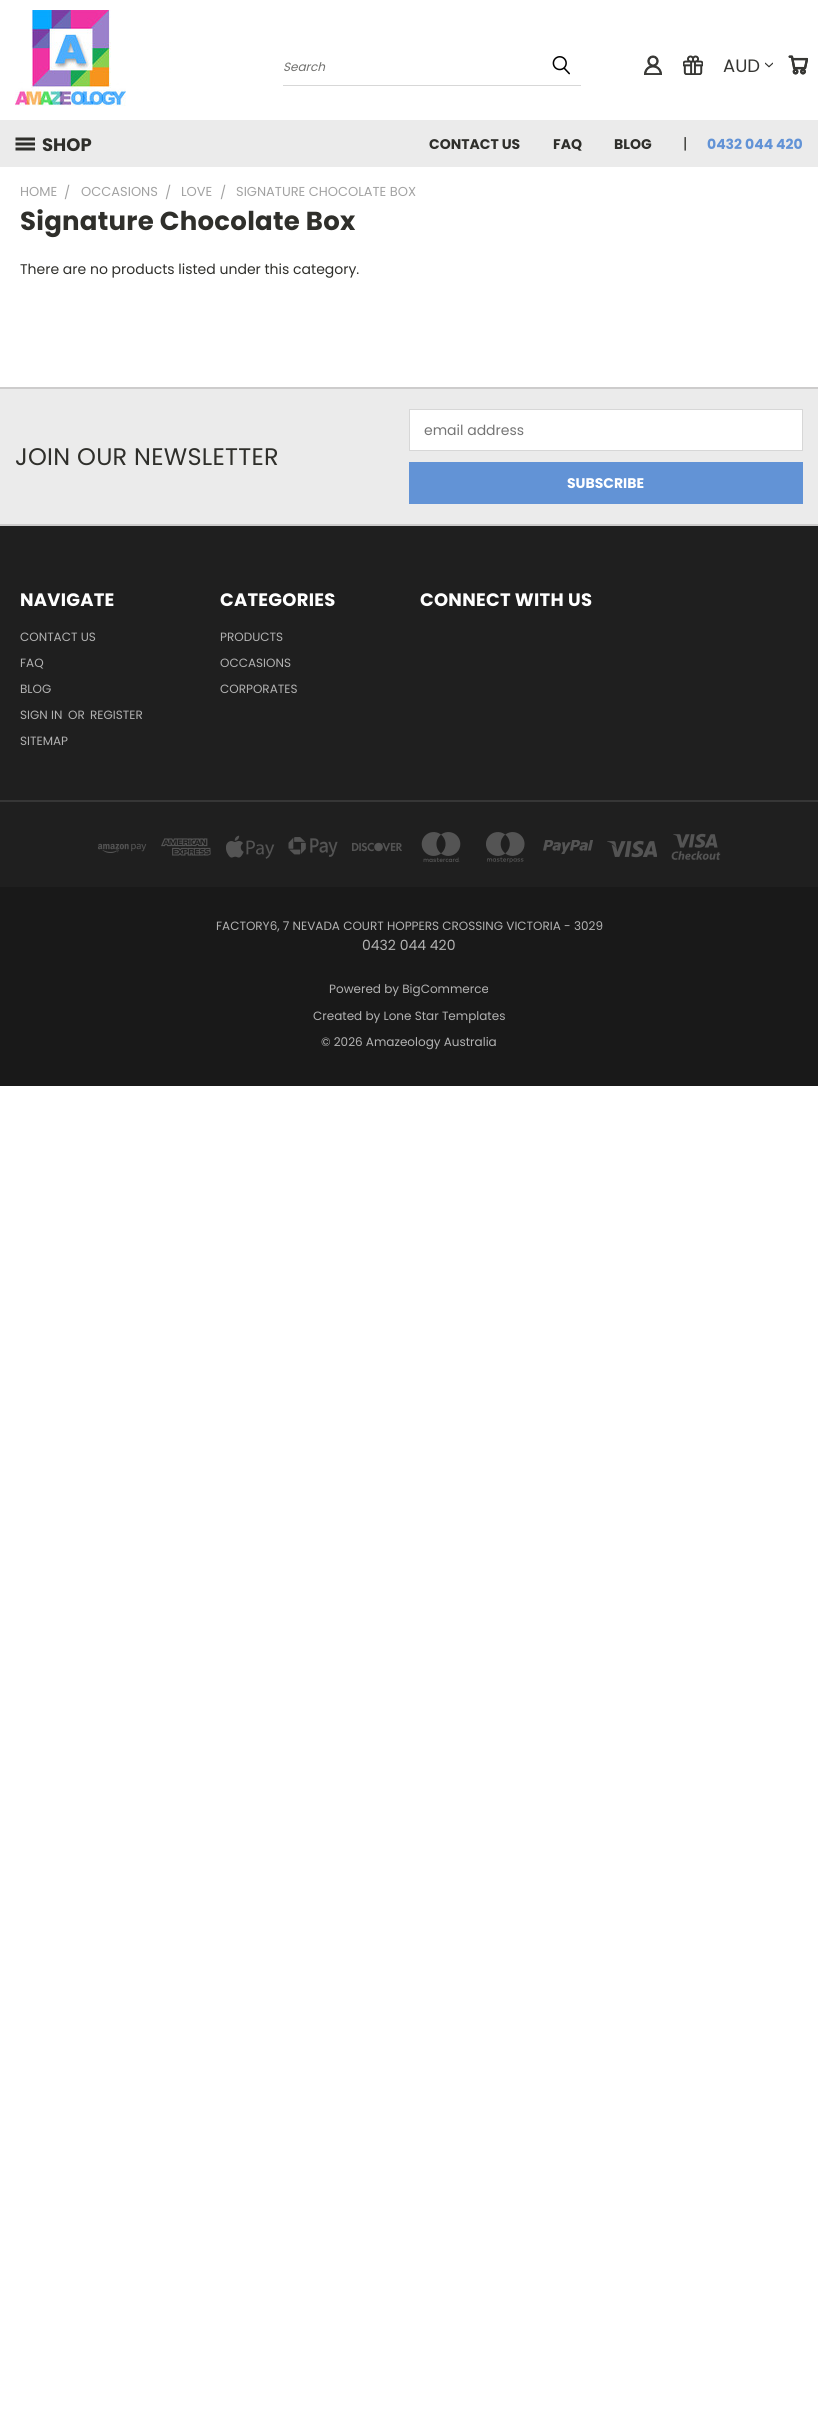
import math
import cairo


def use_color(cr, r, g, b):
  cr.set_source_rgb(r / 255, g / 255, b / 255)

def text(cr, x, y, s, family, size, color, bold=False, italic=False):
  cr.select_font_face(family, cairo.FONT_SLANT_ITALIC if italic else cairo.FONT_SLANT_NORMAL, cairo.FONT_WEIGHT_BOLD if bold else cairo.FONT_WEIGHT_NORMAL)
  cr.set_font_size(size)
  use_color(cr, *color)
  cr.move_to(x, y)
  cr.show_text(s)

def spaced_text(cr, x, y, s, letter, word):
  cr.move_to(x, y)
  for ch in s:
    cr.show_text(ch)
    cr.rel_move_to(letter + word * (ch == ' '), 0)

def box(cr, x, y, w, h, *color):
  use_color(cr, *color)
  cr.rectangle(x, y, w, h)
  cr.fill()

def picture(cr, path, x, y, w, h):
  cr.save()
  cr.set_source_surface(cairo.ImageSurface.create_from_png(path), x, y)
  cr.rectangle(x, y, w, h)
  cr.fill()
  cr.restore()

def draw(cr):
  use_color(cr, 255, 255, 255)
  cr.paint()
  picture(cr, "img_01.png", 15, 10, 111, 96)
  box(cr, 283, 85, 298, 1, 215, 215, 215)
  picture(cr, "img_02.png", 552, 56, 18, 19)
  picture(cr, "img_03.png", 644, 55, 18, 20)
  picture(cr, "img_04.png", 683, 55, 20, 20)
  picture(cr, "img_05.png", 765, 62, 8, 6)
  picture(cr, "img_06.png", 788, 55, 20, 20)
  box(cr, 0, 120, 818, 47, 235, 235, 235)
  picture(cr, "img_07.png", 15, 137, 20, 14)
  box(cr, 0, 389, 818, 135, 235, 235, 235)
  box(cr, 0, 387, 818, 2, 205, 204, 204)
  use_color(cr, 255, 255, 255)
  cr.rectangle(409.5, 409.5, 393, 41)
  cr.fill_preserve()
  use_color(cr, 215, 215, 215)
  cr.set_line_width(1)
  cr.stroke()
  box(cr, 409, 462, 394, 42, 98, 147, 214)
  box(cr, 0, 526, 818, 361, 31, 31, 31)
  box(cr, 0, 524, 818, 2, 205, 204, 204)
  box(cr, 0, 800, 818, 2, 54, 54, 54)
  picture(cr, "img_08.png", 98, 843, 49, 10)
  picture(cr, "img_09.png", 161, 838, 50, 18)
  picture(cr, "img_10.png", 226, 835, 49, 24)
  picture(cr, "img_11.png", 288, 837, 50, 20)
  picture(cr, "img_12.png", 352, 842, 50, 10)
  picture(cr, "img_13.png", 421, 832, 40, 30)
  picture(cr, "img_14.png", 486, 832, 39, 31)
  picture(cr, "img_15.png", 543, 840, 50, 14)
  picture(cr, "img_16.png", 607, 840, 50, 18)
  picture(cr, "img_17.png", 671, 833, 50, 27)
  box(cr, 0, 887, 818, 199, 25, 25, 25)
  text(cr, 283, 71, "Search", "Poppins", 12, (112, 112, 110), italic=True)
  text(cr, 723, 72, "AUD", "Poppins", 18, (54, 54, 51))
  text(cr, 42, 151, "SHOP", "Poppins", 18, (47, 47, 43), bold=True)
  text(cr, 429, 149, "CONTACT US", "Poppins", 14, (47, 47, 43), bold=True)
  text(cr, 553, 149, "FAQ", "Poppins", 14, (47, 47, 43), bold=True)
  text(cr, 614, 149, "BLOG", "Poppins", 14, (47, 47, 43), bold=True)
  text(cr, 683, 149, "|", "Poppins", 15, (47, 47, 43))
  text(cr, 707, 149, "0432 044 420", "Poppins", 14, (98, 147, 214), bold=True)
  text(cr, 20, 196, "HOME", "Poppins", 13, (162, 162, 162))
  text(cr, 64, 197, "/", "Poppins", 13, (162, 162, 162))
  text(cr, 81, 196, "OCCASIONS", "Poppins", 13, (162, 162, 162))
  text(cr, 165, 197, "/", "Poppins", 13, (162, 162, 162))
  text(cr, 181, 196, "LOVE", "Poppins", 13, (162, 162, 162))
  text(cr, 220, 197, "/", "Poppins", 13, (162, 162, 162))
  text(cr, 236, 196, "SIGNATURE CHOCOLATE BOX", "Poppins", 13, (162, 162, 162))
  cr.select_font_face("Poppins", cairo.FONT_SLANT_NORMAL, cairo.FONT_WEIGHT_BOLD)
  cr.set_font_size(26)
  use_color(cr, 47, 47, 43)
  spaced_text(cr, 20, 230, "Signature Chocolate Box", 0.25, 0)
  text(cr, 20, 274, "There are no products listed under this category.", "Poppins", 14, (47, 47, 43))
  cr.set_font_size(24)
  spaced_text(cr, 15, 465, "JOIN OUR NEWSLETTER", 0.25, 0)
  text(cr, 424, 435, "email address", "Poppins", 14, (117, 117, 117))
  text(cr, 567, 488, "SUBSCRIBE", "Poppins", 14, (255, 255, 255), bold=True)
  cr.set_font_size(18)
  spaced_text(cr, 20, 606, "NAVIGATE", 0.25, 0)
  text(cr, 20, 641, "CONTACT US", "Poppins", 12, (178, 178, 178))
  text(cr, 20, 667, "FAQ", "Poppins", 12, (178, 178, 178))
  text(cr, 20, 693, "BLOG", "Poppins", 12, (178, 178, 178))
  text(cr, 20, 719, "SIGN IN", "Poppins", 12, (178, 178, 178))
  text(cr, 68, 719, "OR", "Poppins", 12, (178, 178, 178))
  text(cr, 90, 719, "REGISTER", "Poppins", 12, (178, 178, 178))
  text(cr, 20, 745, "SITEMAP", "Poppins", 12, (178, 178, 178))
  cr.select_font_face("Poppins", cairo.FONT_SLANT_NORMAL, cairo.FONT_WEIGHT_BOLD)
  cr.set_font_size(18)
  use_color(cr, 255, 255, 255)
  spaced_text(cr, 220, 606, "CATEGORIES", 0.25, 0)
  text(cr, 220, 641, "PRODUCTS", "Poppins", 12, (178, 178, 178))
  text(cr, 220, 667, "OCCASIONS", "Poppins", 12, (178, 178, 178))
  text(cr, 220, 693, "CORPORATES", "Poppins", 12, (178, 178, 178))
  cr.select_font_face("Poppins", cairo.FONT_SLANT_NORMAL, cairo.FONT_WEIGHT_BOLD)
  cr.set_font_size(18)
  use_color(cr, 255, 255, 255)
  spaced_text(cr, 420, 606, "CONNECT WITH US", 0.25, 0)
  text(cr, 216, 930, "FACTORY6, 7 NEVADA COURT HOPPERS CROSSING VICTORIA - 3029", "Poppins", 12, (178, 178, 178))
  text(cr, 362, 950, "0432 044 420", "Poppins", 14, (178, 178, 178))
  text(cr, 329, 993, "Powered by BigCommerce", "Poppins", 12, (178, 178, 178))
  text(cr, 313, 1020, "Created by Lone Star Templates", "Poppins", 12, (178, 178, 178))
  text(cr, 321, 1046, "© 2026 Amazeology Australia", "Poppins", 12, (178, 178, 178))


surface = cairo.ImageSurface(cairo.FORMAT_RGB24, 818, 2422)
cr = cairo.Context(surface)
options = cairo.FontOptions()
options.set_hint_metrics(cairo.HINT_METRICS_OFF)
options.set_hint_style(cairo.HINT_STYLE_NONE)
cr.set_font_options(options)
cr.set_miter_limit(4)
draw(cr)
surface.write_to_png("out.png")
